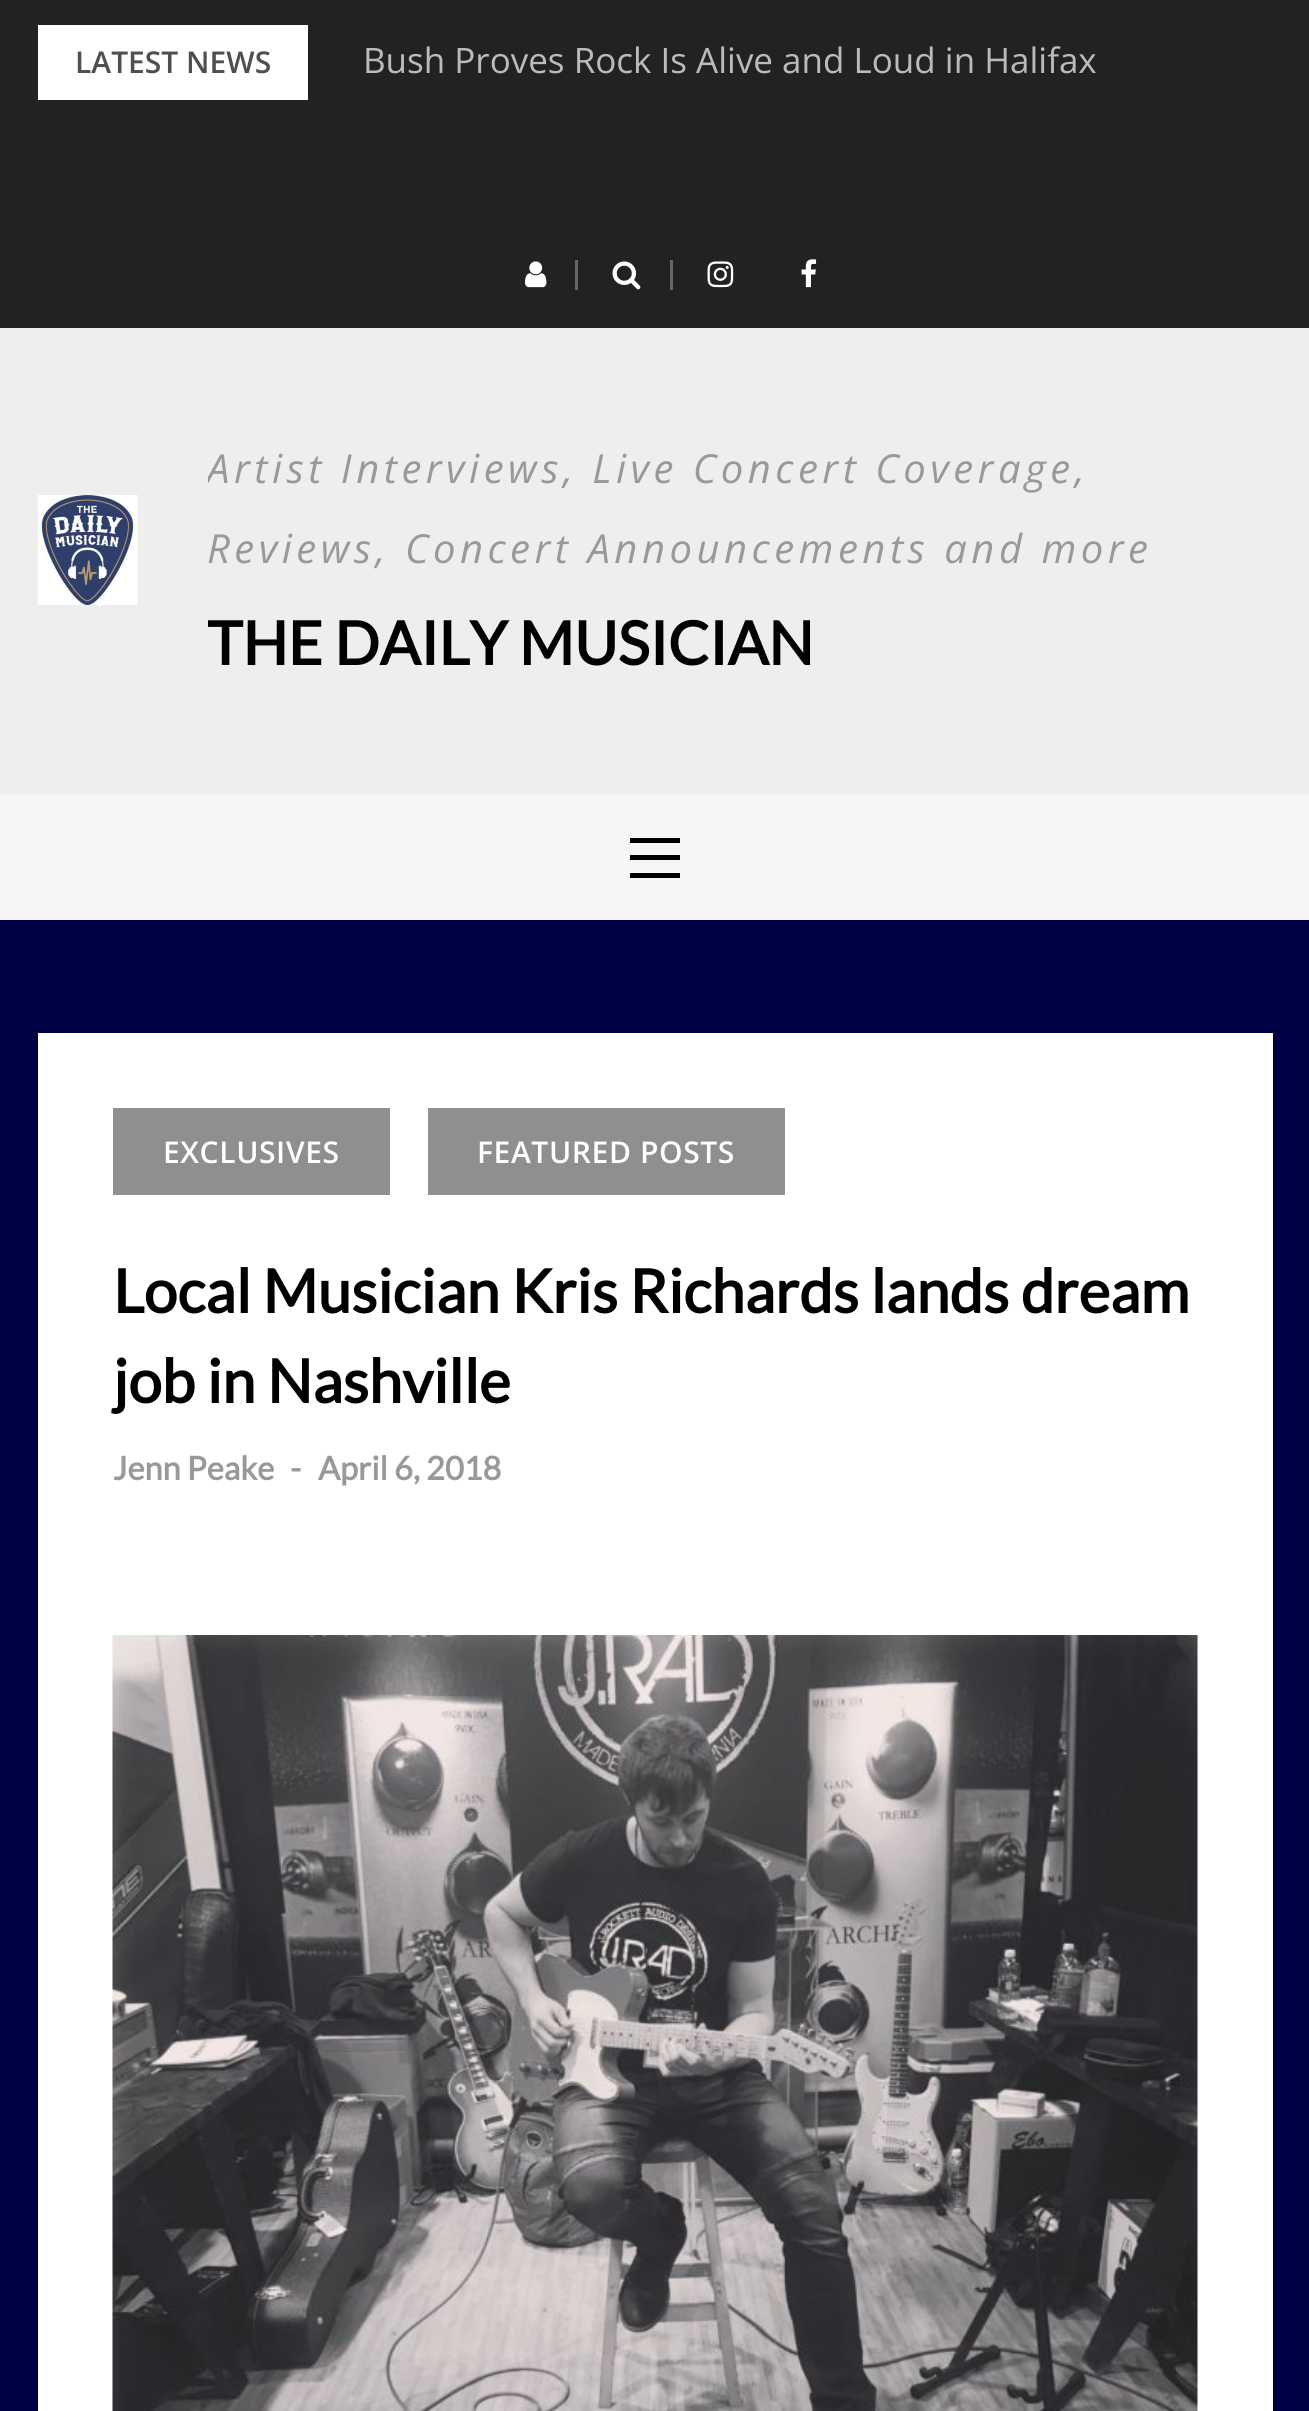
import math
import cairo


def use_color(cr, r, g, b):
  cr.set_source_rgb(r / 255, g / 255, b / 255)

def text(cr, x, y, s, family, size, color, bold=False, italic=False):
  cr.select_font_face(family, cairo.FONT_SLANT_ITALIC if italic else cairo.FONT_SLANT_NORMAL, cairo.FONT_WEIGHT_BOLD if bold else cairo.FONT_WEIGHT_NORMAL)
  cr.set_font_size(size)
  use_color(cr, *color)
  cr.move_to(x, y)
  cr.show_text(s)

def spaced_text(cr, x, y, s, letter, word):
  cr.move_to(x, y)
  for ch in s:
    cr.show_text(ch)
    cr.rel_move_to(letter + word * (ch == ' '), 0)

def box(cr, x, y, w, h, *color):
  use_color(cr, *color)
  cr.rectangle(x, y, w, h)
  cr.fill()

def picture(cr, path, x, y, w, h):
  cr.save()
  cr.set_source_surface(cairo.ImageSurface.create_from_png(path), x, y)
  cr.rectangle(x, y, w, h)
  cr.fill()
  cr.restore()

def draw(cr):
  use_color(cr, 0, 1, 68)
  cr.paint()
  box(cr, 0, 0, 1309, 328, 34, 34, 34)
  box(cr, 38, 25, 270, 75, 255, 255, 255)
  box(cr, 575, 260, 3, 30, 102, 102, 102)
  picture(cr, "img_01.png", 525, 261, 22, 27)
  box(cr, 670, 260, 3, 30, 102, 102, 102)
  picture(cr, "img_02.png", 612, 261, 29, 29)
  picture(cr, "img_03.png", 707, 261, 27, 27)
  picture(cr, "img_04.png", 801, 259, 16, 29)
  box(cr, 0, 328, 1309, 467, 238, 238, 238)
  picture(cr, "img_05.png", 37, 495, 101, 110)
  box(cr, 0, 795, 1309, 125, 246, 246, 246)
  box(cr, 630, 838, 50, 5, 0, 0, 0)
  box(cr, 630, 855, 50, 5, 0, 0, 0)
  box(cr, 630, 873, 50, 5, 0, 0, 0)
  box(cr, 38, 1033, 1235, 1378, 255, 255, 255)
  box(cr, 113, 1108, 277, 87, 144, 142, 142)
  box(cr, 428, 1108, 357, 87, 144, 142, 142)
  picture(cr, "img_06.png", 112, 1635, 1086, 776)
  text(cr, 75, 73, "LATEST NEWS", "Open Sans SemiBold", 30, (79, 79, 79))
  text(cr, 363, 73, "Bush Proves Rock Is Alive and Loud in Halifax", "Open Sans", 35, (187, 187, 187))
  cr.save()
  cr.rectangle(208, 428, 1065, 245)
  cr.clip()
  cr.select_font_face("Open Sans", cairo.FONT_SLANT_ITALIC)
  cr.set_font_size(40)
  use_color(cr, 153, 153, 153)
  spaced_text(cr, 207, 483, "Artist Interviews, Live Concert Coverage,", 4.5, 0)
  cr.restore()
  cr.select_font_face("Open Sans", cairo.FONT_SLANT_ITALIC)
  cr.set_font_size(40)
  use_color(cr, 153, 153, 153)
  spaced_text(cr, 207, 563, "Reviews, Concert Announcements and more", 4.5, 0)
  cr.save()
  cr.rectangle(208, 428, 1065, 245)
  cr.clip()
  text(cr, 207, 665, "THE DAILY MUSICIAN", "Lato", 60, (0, 0, 0), bold=True)
  cr.restore()
  cr.select_font_face("Open Sans SemiBold")
  cr.set_font_size(30)
  use_color(cr, 255, 255, 255)
  spaced_text(cr, 163, 1163, "EXCLUSIVES", 0.6, 0)
  spaced_text(cr, 477, 1163, "FEATURED POSTS", 0.6, 0)
  text(cr, 113, 1313, "Local Musician Kris Richards lands dream", "Lato", 60, (0, 0, 0), bold=True)
  text(cr, 113, 1403, "job in Nashville", "Lato", 60, (0, 0, 0), bold=True)
  text(cr, 113, 1480, "Jenn Peake", "Lato", 32.5, (153, 153, 153), bold=True)
  text(cr, 290, 1480, "-", "Lato", 32.5, (153, 153, 153), bold=True)
  text(cr, 318, 1480, "April 6, 2018", "Lato", 32.5, (153, 153, 153), bold=True)


surface = cairo.ImageSurface(cairo.FORMAT_RGB24, 1309, 2411)
cr = cairo.Context(surface)
options = cairo.FontOptions()
options.set_hint_metrics(cairo.HINT_METRICS_OFF)
options.set_hint_style(cairo.HINT_STYLE_NONE)
cr.set_font_options(options)
cr.set_miter_limit(4)
draw(cr)
surface.write_to_png("out.png")
